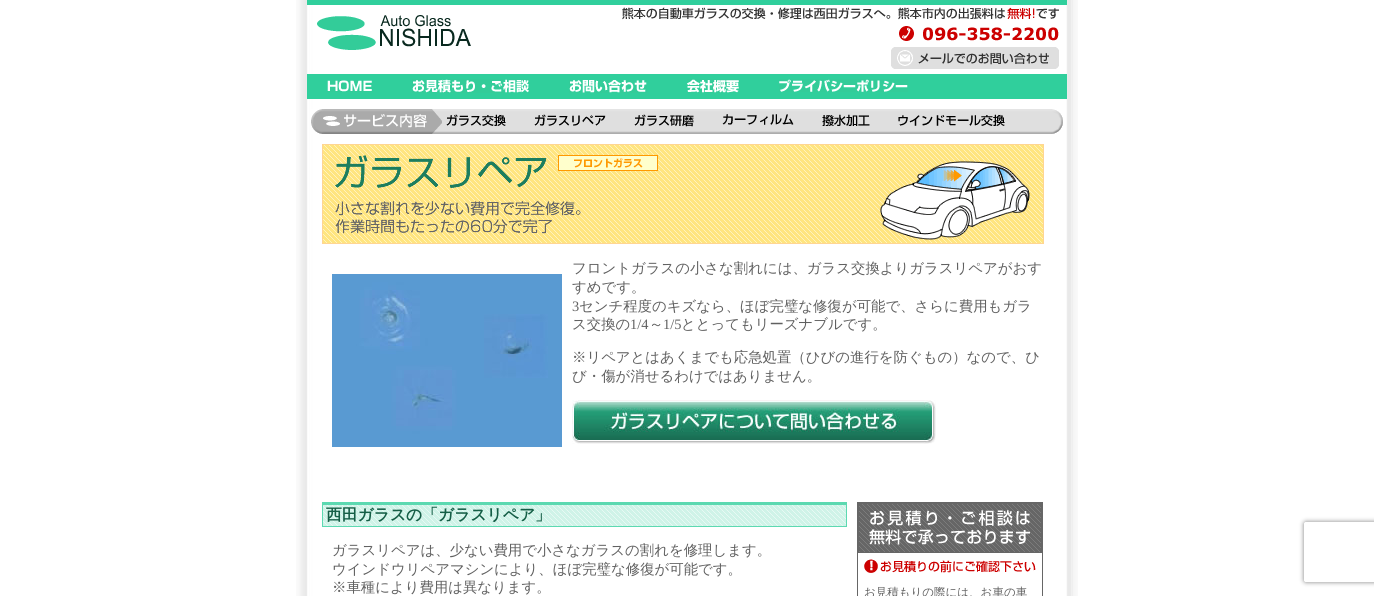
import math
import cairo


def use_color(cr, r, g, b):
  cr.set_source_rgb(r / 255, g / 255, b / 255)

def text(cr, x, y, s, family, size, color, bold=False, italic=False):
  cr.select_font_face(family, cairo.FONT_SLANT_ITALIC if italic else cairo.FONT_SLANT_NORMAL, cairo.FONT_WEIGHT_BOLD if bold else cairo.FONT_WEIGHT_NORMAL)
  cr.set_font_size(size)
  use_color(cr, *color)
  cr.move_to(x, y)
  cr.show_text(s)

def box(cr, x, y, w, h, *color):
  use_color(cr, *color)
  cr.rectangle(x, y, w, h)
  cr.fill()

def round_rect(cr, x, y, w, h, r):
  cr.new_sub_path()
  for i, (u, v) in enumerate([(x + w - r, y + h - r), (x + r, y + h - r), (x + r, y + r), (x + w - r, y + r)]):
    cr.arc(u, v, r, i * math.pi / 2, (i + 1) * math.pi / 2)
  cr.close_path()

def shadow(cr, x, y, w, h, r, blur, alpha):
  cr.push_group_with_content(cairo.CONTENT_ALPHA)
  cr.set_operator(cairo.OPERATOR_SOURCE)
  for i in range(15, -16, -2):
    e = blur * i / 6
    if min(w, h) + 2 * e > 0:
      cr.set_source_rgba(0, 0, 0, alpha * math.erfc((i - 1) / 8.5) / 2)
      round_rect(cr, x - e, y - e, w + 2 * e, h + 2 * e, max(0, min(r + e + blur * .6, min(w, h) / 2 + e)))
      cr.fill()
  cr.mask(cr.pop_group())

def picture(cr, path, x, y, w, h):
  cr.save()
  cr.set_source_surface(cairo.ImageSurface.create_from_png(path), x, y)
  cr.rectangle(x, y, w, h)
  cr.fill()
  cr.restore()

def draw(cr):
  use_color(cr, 255, 255, 255)
  cr.paint()
  picture(cr, "img_01.png", 296, 0, 782, 596)
  box(cr, 307, 0, 760, 5, 48, 207, 156)
  picture(cr, "img_02.png", 317, 15, 154, 35)
  picture(cr, "img_03.png", 622, 7, 437, 13)
  picture(cr, "img_04.png", 899, 26, 160, 15)
  picture(cr, "img_05.png", 891, 47, 168, 22)
  box(cr, 307, 74, 760, 25, 48, 207, 156)
  picture(cr, "img_06.png", 327, 80, 45, 12)
  picture(cr, "img_07.png", 412, 79, 117, 14)
  picture(cr, "img_08.png", 569, 80, 78, 13)
  picture(cr, "img_09.png", 687, 79, 52, 14)
  picture(cr, "img_10.png", 779, 79, 129, 13)
  picture(cr, "img_11.png", 311, 109, 752, 25)
  picture(cr, "img_12.png", 442, 114, 64, 12)
  picture(cr, "img_13.png", 534, 114, 72, 12)
  picture(cr, "img_14.png", 634, 114, 60, 13)
  picture(cr, "img_15.png", 722, 114, 72, 11)
  picture(cr, "img_16.png", 822, 114, 48, 12)
  picture(cr, "img_17.png", 898, 114, 107, 12)
  picture(cr, "img_18.png", 322, 144, 722, 100)
  picture(cr, "img_19.png", 332, 274, 230, 173)
  picture(cr, "img_20.png", 572, 400, 364, 44)
  picture(cr, "img_21.png", 323, 505, 523, 21)
  box(cr, 322, 502, 525, 3, 92, 217, 177)
  box(cr, 846, 502, 1, 25, 92, 217, 177)
  box(cr, 322, 526, 525, 1, 92, 217, 177)
  box(cr, 322, 502, 1, 25, 92, 217, 177)
  cr.rectangle(857.5, 502.5, 185, 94)
  use_color(cr, 102, 102, 102)
  cr.set_line_width(1)
  cr.stroke()
  picture(cr, "img_22.png", 858, 503, 184, 50)
  picture(cr, "img_23.png", 864, 559, 172, 14)
  cr.save()
  cr.set_fill_rule(cairo.FILL_RULE_EVEN_ODD)
  cr.new_path()
  cr.move_to(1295, 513)
  cr.line_to(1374, 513)
  cr.line_to(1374, 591)
  cr.line_to(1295, 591)
  cr.close_path()
  cr.move_to(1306, 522)
  cr.line_to(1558, 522)
  cr.curve_to(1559, 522, 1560, 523, 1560, 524)
  cr.line_to(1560, 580)
  cr.curve_to(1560, 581, 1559, 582, 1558, 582)
  cr.line_to(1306, 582)
  cr.curve_to(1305, 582, 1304, 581, 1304, 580)
  cr.line_to(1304, 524)
  cr.curve_to(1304, 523, 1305, 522, 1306, 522)
  cr.close_path()
  cr.clip()
  use_color(cr, 128, 128, 128)
  shadow(cr, 1304, 522, 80, 60, 2, 2.5, 1)
  cr.restore()
  text(cr, 572, 273, "フロントガラスの小さな割れには、ガラス交換よりガラスリペアがおす", "WenQuanYi Zen Hei Medium", 14.4, (96, 96, 96))
  text(cr, 572, 292, "すめです。", "WenQuanYi Zen Hei Medium", 14.4, (96, 96, 96))
  text(cr, 572, 311, "3", "Liberation Serif", 14.4, (96, 96, 96))
  text(cr, 579, 311, "センチ程度のキズなら、ほぼ完璧な修復が可能で、さらに費用もガラ", "WenQuanYi Zen Hei Medium", 14.4, (96, 96, 96))
  text(cr, 572, 329, "ス交換の", "WenQuanYi Zen Hei Medium", 14.4, (96, 96, 96))
  text(cr, 630, 329, "1/4", "Liberation Serif", 14.4, (96, 96, 96))
  text(cr, 649, 329, "～", "WenQuanYi Zen Hei Medium", 14.4, (96, 96, 96))
  text(cr, 663, 329, "1/5", "Liberation Serif", 14.4, (96, 96, 96))
  text(cr, 681, 329, "ととってもリーズナブルです。", "WenQuanYi Zen Hei Medium", 14.4, (96, 96, 96))
  text(cr, 572, 362, "※リペアとはあくまでも応急処置（ひびの進行を防ぐもの）なので、ひ", "WenQuanYi Zen Hei Medium", 14.4, (96, 96, 96))
  text(cr, 572, 381, "び・傷が消せるわけではありません。", "WenQuanYi Zen Hei Medium", 14.4, (96, 96, 96))
  text(cr, 326, 520, "西田ガラスの「ガラスリペア」", "WenQuanYi Zen Hei", 15.8, (21, 94, 70), bold=True)
  text(cr, 332, 555, "ガラスリペアは、少ない費用で小さなガラスの割れを修理します。", "WenQuanYi Zen Hei Medium", 14.4, (96, 96, 96))
  text(cr, 332, 574, "ウインドウリペアマシンにより、ほぼ完璧な修復が可能です。", "WenQuanYi Zen Hei Medium", 14.4, (96, 96, 96))
  text(cr, 332, 592, "※車種により費用は異なります。", "WenQuanYi Zen Hei Medium", 14.4, (96, 96, 96))
  text(cr, 864, 596, "お見積もりの際には、お車の車", "WenQuanYi Zen Hei Medium", 11.5, (96, 96, 96))


surface = cairo.ImageSurface(cairo.FORMAT_RGB24, 1374, 596)
cr = cairo.Context(surface)
options = cairo.FontOptions()
options.set_hint_metrics(cairo.HINT_METRICS_OFF)
options.set_hint_style(cairo.HINT_STYLE_NONE)
cr.set_font_options(options)
cr.set_miter_limit(4)
draw(cr)
surface.write_to_png("out.png")
